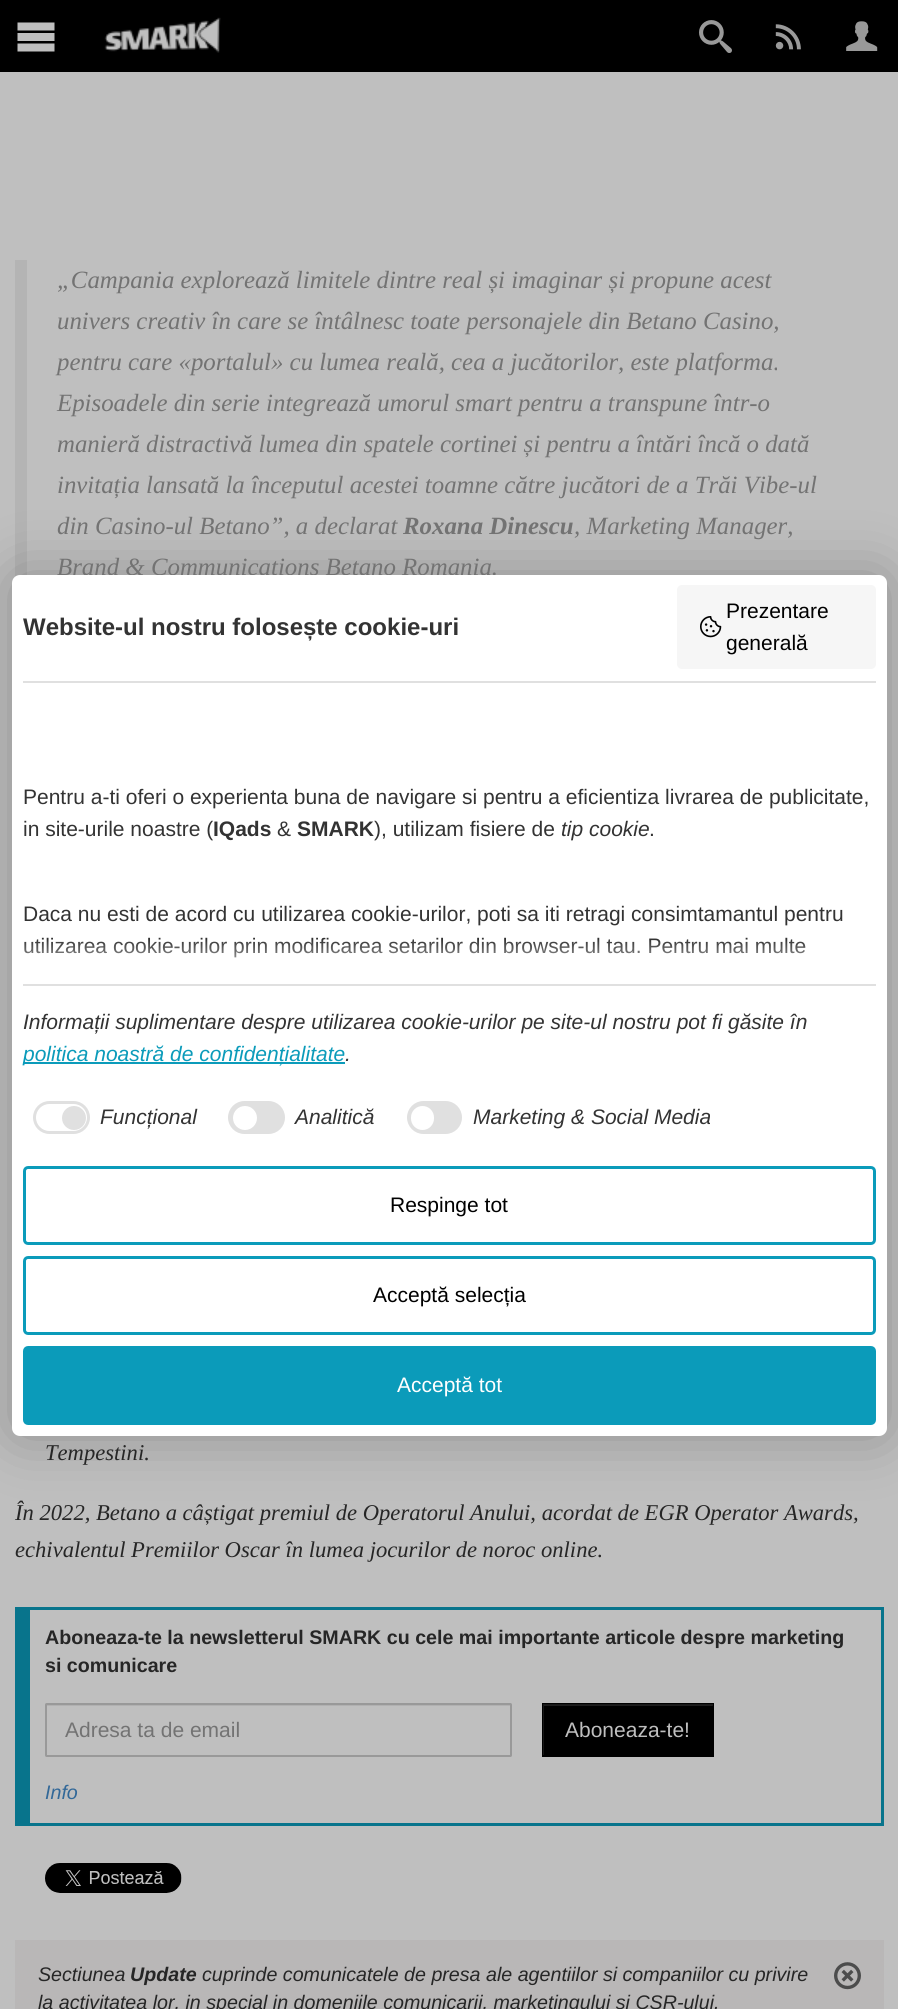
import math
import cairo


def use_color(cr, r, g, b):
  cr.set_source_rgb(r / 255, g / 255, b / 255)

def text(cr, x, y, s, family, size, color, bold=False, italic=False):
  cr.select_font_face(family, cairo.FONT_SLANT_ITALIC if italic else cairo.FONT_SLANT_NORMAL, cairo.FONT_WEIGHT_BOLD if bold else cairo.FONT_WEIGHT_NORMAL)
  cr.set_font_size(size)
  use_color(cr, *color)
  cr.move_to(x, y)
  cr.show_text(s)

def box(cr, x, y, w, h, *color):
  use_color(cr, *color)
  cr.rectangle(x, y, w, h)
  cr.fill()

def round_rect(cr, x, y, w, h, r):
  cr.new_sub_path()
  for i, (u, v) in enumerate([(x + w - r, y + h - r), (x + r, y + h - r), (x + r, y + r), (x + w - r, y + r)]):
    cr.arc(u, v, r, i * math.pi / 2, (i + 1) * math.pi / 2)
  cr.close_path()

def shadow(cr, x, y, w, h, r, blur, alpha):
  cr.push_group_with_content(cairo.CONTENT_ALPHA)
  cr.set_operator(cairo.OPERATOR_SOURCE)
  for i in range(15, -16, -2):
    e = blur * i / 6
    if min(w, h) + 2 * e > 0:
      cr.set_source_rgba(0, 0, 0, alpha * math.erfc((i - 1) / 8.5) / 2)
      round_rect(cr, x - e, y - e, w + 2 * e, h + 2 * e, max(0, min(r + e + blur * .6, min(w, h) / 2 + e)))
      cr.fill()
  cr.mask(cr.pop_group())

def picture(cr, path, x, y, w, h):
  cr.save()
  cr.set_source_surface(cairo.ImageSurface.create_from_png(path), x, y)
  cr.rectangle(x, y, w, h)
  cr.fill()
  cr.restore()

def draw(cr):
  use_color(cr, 191, 191, 191)
  cr.paint()
  box(cr, 0, 0, 898, 72, 0, 0, 0)
  use_color(cr, 191, 191, 191)
  cr.new_path()
  cr.move_to(17.5, 22.5)
  cr.line_to(54.5, 22.5)
  cr.line_to(54.5, 30.5)
  cr.line_to(17.5, 30.5)
  cr.close_path()
  cr.move_to(17.5, 33)
  cr.line_to(54.5, 33)
  cr.line_to(54.5, 41)
  cr.line_to(17.5, 41)
  cr.close_path()
  cr.move_to(17.5, 43.5)
  cr.line_to(54.5, 43.5)
  cr.line_to(54.5, 51.5)
  cr.line_to(17.5, 51.5)
  cr.close_path()
  cr.fill()
  picture(cr, "img_01.png", 104, 17, 117, 36)
  picture(cr, "img_02.png", 699, 20, 33, 33)
  picture(cr, "img_03.png", 775, 24, 26, 26)
  picture(cr, "img_04.png", 846, 21, 32, 30)
  box(cr, 15, 260, 12, 317, 180, 180, 180)
  box(cr, 30, 1607, 854, 3, 8, 116, 140)
  box(cr, 881, 1607, 3, 219, 8, 116, 140)
  box(cr, 30, 1823, 854, 3, 8, 116, 140)
  box(cr, 15, 1607, 15, 219, 8, 116, 140)
  box(cr, 47, 1705, 463, 1, 177, 177, 177)
  round_rect(cr, 46, 1704, 465, 52, 0.5)
  use_color(cr, 153, 153, 153)
  cr.stroke()
  box(cr, 542, 1703, 172, 54, 0, 0, 0)
  cr.save()
  cr.rectangle(543, 1704, 170, 51)
  cr.clip()
  use_color(cr, 29, 29, 29)
  cr.set_fill_rule(cairo.FILL_RULE_EVEN_ODD)
  cr.new_path()
  cr.move_to(394, 1556)
  cr.line_to(861, 1556)
  cr.line_to(861, 1904)
  cr.line_to(394, 1904)
  cr.close_path()
  cr.move_to(544, 1706)
  cr.line_to(714, 1706)
  cr.line_to(714, 1756)
  cr.line_to(544, 1756)
  cr.close_path()
  cr.fill()
  cr.restore()
  cr.rectangle(543, 1704, 170, 52)
  cr.set_source_rgba(0, 0, 0, 0.2)
  cr.stroke()
  picture(cr, "img_05.png", 45, 1863, 137, 30)
  box(cr, 15, 1940, 869, 69, 185, 183, 183)
  picture(cr, "img_06.png", 834, 1962, 27, 28)
  use_color(cr, 0, 0, 0)
  shadow(cr, 12, 575, 875, 861, 8, 30, 0.25)
  text(cr, 57, 288, "„Campania explorează limitele dintre real și imaginar și propune acest", "Liberation Serif", 24.85, (115, 115, 115), italic=True)
  text(cr, 57, 329, "univers creativ în care se întâlnesc toate personajele din Betano Casino,", "Liberation Serif", 24.85, (115, 115, 115), italic=True)
  text(cr, 57, 370, "pentru care «portalul» cu lumea reală, cea a jucătorilor, este platforma.", "Liberation Serif", 24.85, (115, 115, 115), italic=True)
  text(cr, 57, 411, "Episoadele din serie integrează umorul smart pentru a transpune într-o", "Liberation Serif", 24.85, (115, 115, 115), italic=True)
  text(cr, 57, 452, "manieră distractivă lumea din spatele cortinei și pentru a întări încă o dată", "Liberation Serif", 24.85, (115, 115, 115), italic=True)
  text(cr, 57, 493, "invitația lansată la începutul acestei toamne către jucători de a Trăi Vibe-ul", "Liberation Serif", 24.85, (115, 115, 115), italic=True)
  text(cr, 57, 534, "din Casino-ul Betano”, a declarat", "Liberation Serif", 24.85, (115, 115, 115), italic=True)
  text(cr, 403, 534, "Roxana Dinescu", "Liberation Serif", 24.85, (115, 115, 115), bold=True, italic=True)
  text(cr, 574, 534, ", Marketing Manager,", "Liberation Serif", 24.85, (115, 115, 115), italic=True)
  text(cr, 57, 575, "Brand & Communications Betano Romania.", "Liberation Serif", 24.85, (115, 115, 115), italic=True)
  text(cr, 45, 1460, "Tempestini.", "Liberation Serif", 22.6, (38, 38, 38), italic=True)
  text(cr, 15, 1520, "În 2022, Betano a câștigat premiul de Operatorul Anului, acordat de EGR Operator Awards,", "Liberation Serif", 22.6, (38, 38, 38), italic=True)
  text(cr, 15, 1557, "echivalentul Premiilor Oscar în lumea jocurilor de noroc online.", "Liberation Serif", 22.6, (38, 38, 38), italic=True)
  text(cr, 45, 1644, "Aboneaza-te la newsletterul SMARK cu cele mai importante articole despre marketing", "Liberation Sans", 19.65, (38, 38, 38), bold=True)
  text(cr, 45, 1672, "si comunicare", "Liberation Sans", 19.65, (38, 38, 38), bold=True)
  text(cr, 65, 1737, "Adresa ta de email", "Liberation Sans", 21, (115, 115, 115))
  text(cr, 565, 1737, "Aboneaza-te!", "Liberation Sans", 21, (191, 191, 191))
  text(cr, 45, 1799, "Info", "Liberation Sans", 19.65, (50, 104, 152), italic=True)
  text(cr, 38, 1981, "Sectiunea", "Liberation Sans", 19.65, (38, 38, 38), italic=True)
  text(cr, 130, 1981, "Update", "Liberation Sans", 19.65, (38, 38, 38), bold=True, italic=True)
  text(cr, 202, 1981, "cuprinde comunicatele de presa ale agentiilor si companiilor cu privire", "Liberation Sans", 19.65, (38, 38, 38), italic=True)
  text(cr, 38, 2009, "la activitatea lor, in special in domeniile comunicarii, marketingului si CSR-ului.", "Liberation Sans", 19.65, (38, 38, 38), italic=True)
  use_color(cr, 255, 255, 255)
  round_rect(cr, 12, 575, 875, 861, 8)
  cr.fill()
  text(cr, 23, 635, "Website-ul nostru folosește cookie-uri", "Liberation Sans", 24, (51, 51, 51), bold=True)
  use_color(cr, 246, 246, 246)
  round_rect(cr, 677, 585, 199, 84, 5)
  cr.fill()
  text(cr, 726, 618, "Prezentare", "Liberation Sans", 21, (0, 0, 0))
  picture(cr, "img_07.png", 700, 616, 22, 22)
  text(cr, 726, 650, "generală", "Liberation Sans", 21, (0, 0, 0))
  box(cr, 23, 681, 853, 2, 224, 224, 224)
  box(cr, 23, 984, 853, 2, 224, 224, 224)
  text(cr, 23, 804, "Pentru a-ti oferi o experienta buna de navigare si pentru a eficientiza livrarea de publicitate,", "Liberation Sans", 21, (51, 51, 51))
  text(cr, 23, 836, "in site-urile noastre (", "Liberation Sans", 21, (51, 51, 51))
  text(cr, 213, 836, "IQads", "Liberation Sans", 21, (51, 51, 51), bold=True)
  text(cr, 277, 836, "&", "Liberation Sans", 21, (51, 51, 51))
  text(cr, 297, 836, "SMARK", "Liberation Sans", 21, (51, 51, 51), bold=True)
  text(cr, 374, 836, "), utilizam fisiere de", "Liberation Sans", 21, (51, 51, 51))
  text(cr, 561, 836, "tip cookie", "Liberation Sans", 21, (51, 51, 51), italic=True)
  text(cr, 649, 836, ".", "Liberation Sans", 21, (51, 51, 51))
  text(cr, 23, 921, "Daca nu esti de acord cu utilizarea cookie-urilor, poti sa iti retragi consimtamantul pentru", "Liberation Sans", 21, (51, 51, 51))
  text(cr, 23, 953, "utilizarea cookie-urilor prin modificarea setarilor din browser-ul tau. Pentru mai multe", "Liberation Sans", 21, (51, 51, 51))
  gradient = cairo.LinearGradient(449, 939, 449, 984)
  gradient.add_color_stop_rgba(0, 1, 1, 1, 0)
  gradient.add_color_stop_rgba(1, 1, 1, 1, 1)
  cr.set_source(gradient)
  cr.rectangle(23, 940, 782, 18)
  cr.fill()
  text(cr, 23, 1029, "Informații suplimentare despre utilizarea cookie-urilor pe site-ul nostru pot fi găsite în", "Liberation Sans", 21, (51, 51, 51), italic=True)
  box(cr, 23, 1062, 322, 2, 11, 155, 186)
  text(cr, 23, 1061, "politica noastră de confidențialitate", "Liberation Sans", 21, (11, 155, 186), italic=True)
  text(cr, 345, 1061, ".", "Liberation Sans", 21, (51, 51, 51), italic=True)
  round_rect(cr, 34.5, 1102.5, 54, 30, 15)
  use_color(cr, 224, 224, 224)
  cr.set_line_width(3)
  cr.stroke()
  cr.arc(74, 1118, 12, 0, 2 * math.pi)
  cr.fill()
  text(cr, 100, 1124, "Funcțional", "Liberation Sans", 21, (51, 51, 51), italic=True)
  use_color(cr, 224, 224, 224)
  round_rect(cr, 229.5, 1102.5, 54, 30, 15)
  cr.fill_preserve()
  cr.stroke()
  use_color(cr, 255, 255, 255)
  cr.arc(245, 1118, 12, 0, 2 * math.pi)
  cr.fill()
  text(cr, 295, 1124, "Analitică", "Liberation Sans", 21, (51, 51, 51), italic=True)
  use_color(cr, 224, 224, 224)
  round_rect(cr, 408.5, 1102.5, 52, 30, 15)
  cr.fill_preserve()
  cr.stroke()
  use_color(cr, 255, 255, 255)
  round_rect(cr, 411, 1106, 23, 24, 11.5)
  cr.fill()
  text(cr, 473, 1124, "Marketing & Social Media", "Liberation Sans", 21, (51, 51, 51), italic=True)
  round_rect(cr, 24.5, 1167.5, 850, 76, 3.5)
  use_color(cr, 11, 155, 186)
  cr.stroke()
  text(cr, 390, 1212, "Respinge tot", "Liberation Sans", 21, (0, 0, 0))
  round_rect(cr, 24.5, 1257.5, 850, 76, 3.5)
  use_color(cr, 11, 155, 186)
  cr.stroke()
  text(cr, 373, 1302, "Acceptă selecția", "Liberation Sans", 21, (0, 0, 0))
  use_color(cr, 11, 155, 186)
  round_rect(cr, 24.5, 1347.5, 850, 76, 3.5)
  cr.fill_preserve()
  cr.stroke()
  text(cr, 397, 1392, "Acceptă tot", "Liberation Sans", 21, (255, 255, 255))


surface = cairo.ImageSurface(cairo.FORMAT_RGB24, 898, 2009)
cr = cairo.Context(surface)
options = cairo.FontOptions()
options.set_hint_metrics(cairo.HINT_METRICS_OFF)
options.set_hint_style(cairo.HINT_STYLE_NONE)
cr.set_font_options(options)
cr.set_miter_limit(4)
draw(cr)
surface.write_to_png("out.png")
